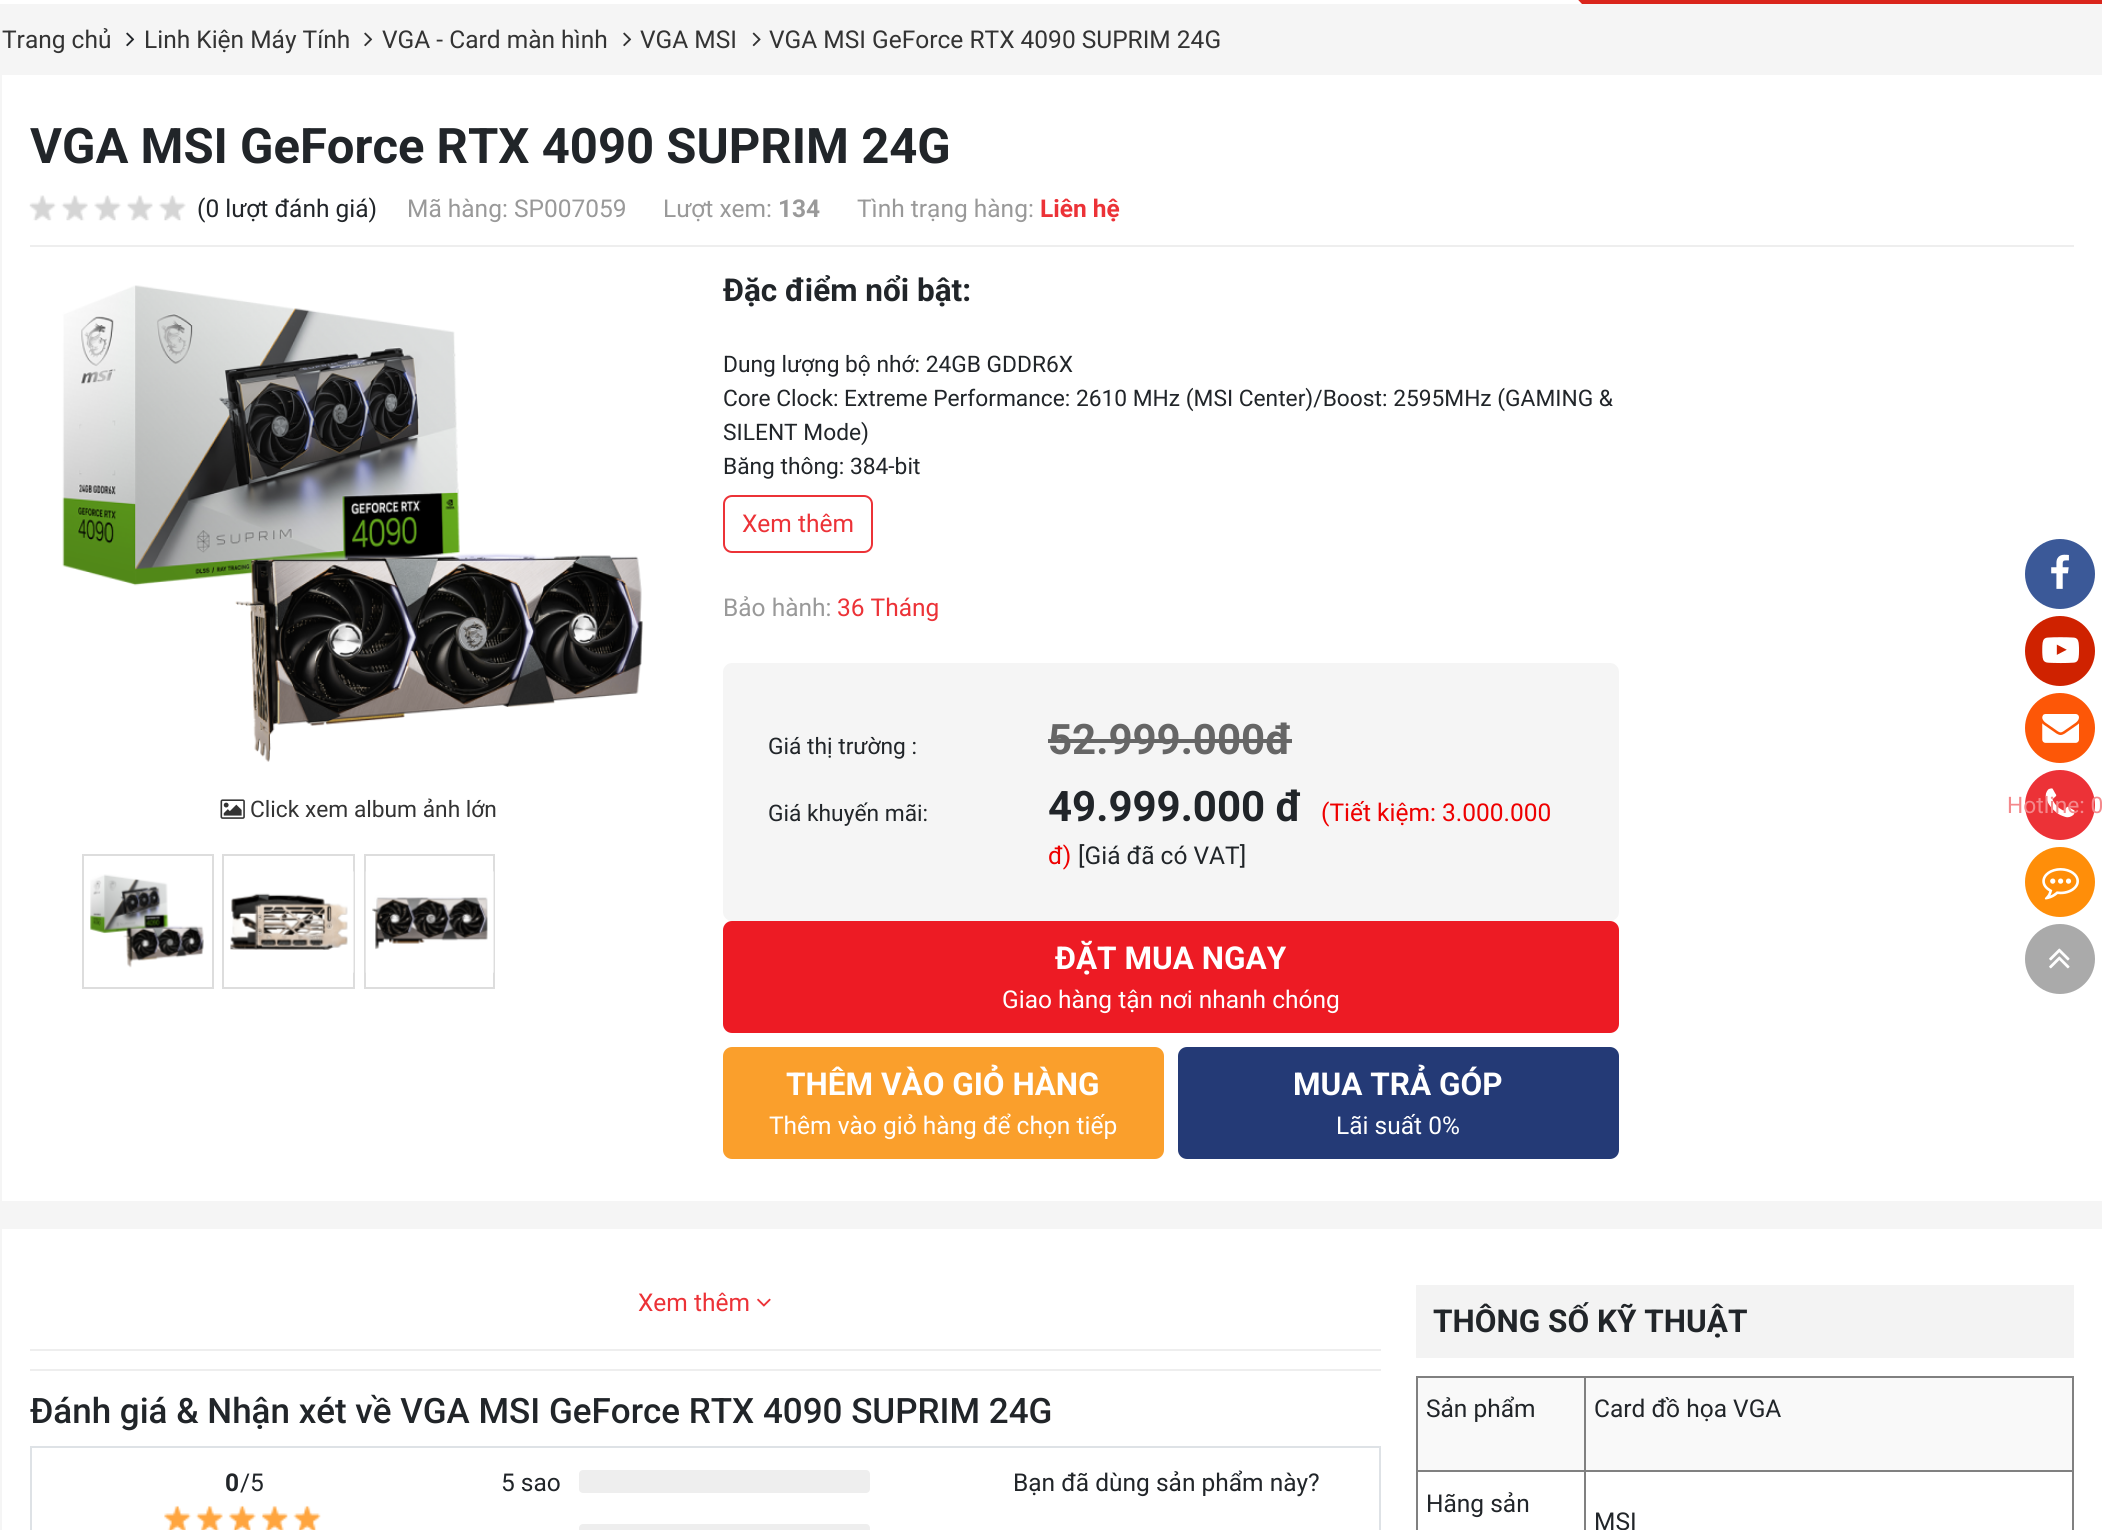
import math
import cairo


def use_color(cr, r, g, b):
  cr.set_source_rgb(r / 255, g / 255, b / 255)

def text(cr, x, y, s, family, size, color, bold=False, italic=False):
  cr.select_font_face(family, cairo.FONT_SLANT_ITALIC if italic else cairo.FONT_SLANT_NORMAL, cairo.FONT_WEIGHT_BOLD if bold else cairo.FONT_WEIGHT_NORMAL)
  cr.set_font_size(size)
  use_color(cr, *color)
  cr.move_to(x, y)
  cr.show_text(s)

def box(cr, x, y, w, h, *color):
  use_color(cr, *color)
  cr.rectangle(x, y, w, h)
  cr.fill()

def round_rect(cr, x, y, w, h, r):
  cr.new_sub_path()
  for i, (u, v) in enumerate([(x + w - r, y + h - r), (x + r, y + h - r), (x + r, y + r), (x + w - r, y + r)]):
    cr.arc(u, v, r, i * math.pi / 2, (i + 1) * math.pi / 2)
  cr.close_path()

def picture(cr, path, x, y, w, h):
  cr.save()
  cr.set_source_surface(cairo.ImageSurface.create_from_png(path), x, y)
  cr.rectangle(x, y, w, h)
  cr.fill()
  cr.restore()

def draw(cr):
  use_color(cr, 245, 245, 245)
  cr.paint()
  box(cr, 0, 0, 1582, 4, 255, 255, 255)
  box(cr, 1582, 0, 520, 4, 218, 37, 28)
  cr.new_path()
  cr.move_to(1521, -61)
  cr.line_to(1582, -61)
  cr.line_to(1582, 4)
  cr.close_path()
  cr.fill()
  picture(cr, "img_01.png", 126, 32, 9, 15)
  picture(cr, "img_02.png", 364, 32, 9, 15)
  picture(cr, "img_02.png", 623, 32, 9, 15)
  picture(cr, "img_03.png", 752, 32, 9, 15)
  box(cr, 2, 75, 2100, 1126, 255, 255, 255)
  picture(cr, "img_04.png", 29, 195, 157, 26)
  box(cr, 30, 245, 2044, 2, 238, 238, 238)
  picture(cr, "img_05.png", 62, 285, 581, 477)
  picture(cr, "img_06.png", 220, 799, 25, 20)
  cr.rectangle(83, 855, 130, 133)
  use_color(cr, 221, 221, 221)
  cr.stroke()
  picture(cr, "img_07.png", 90, 874, 114, 94)
  cr.rectangle(223, 855, 131, 133)
  cr.stroke()
  picture(cr, "img_08.png", 230, 871, 124, 102)
  cr.rectangle(365, 855, 129, 133)
  cr.stroke()
  picture(cr, "img_09.png", 365, 871, 129, 102)
  round_rect(cr, 724, 496, 148, 56, 8)
  use_color(cr, 236, 50, 55)
  cr.stroke()
  use_color(cr, 245, 245, 245)
  round_rect(cr, 723, 663, 896, 258, 9)
  cr.fill()
  box(cr, 1048, 739, 244, 4, 102, 102, 102)
  use_color(cr, 237, 27, 36)
  round_rect(cr, 723, 921, 896, 112, 9)
  cr.fill()
  use_color(cr, 250, 159, 44)
  round_rect(cr, 723, 1047, 441, 112, 9)
  cr.fill()
  use_color(cr, 36, 58, 118)
  round_rect(cr, 1178, 1047, 441, 112, 9)
  cr.fill()
  box(cr, 2, 1229, 2100, 301, 255, 255, 255)
  picture(cr, "img_10.png", 757, 1298, 14, 9)
  box(cr, 30, 1349, 1351, 2, 238, 238, 238)
  box(cr, 30, 1369, 1351, 2, 238, 238, 238)
  cr.rectangle(31, 1447, 1349, 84)
  use_color(cr, 222, 226, 230)
  cr.stroke()
  picture(cr, "img_11.png", 164, 1505, 157, 25)
  use_color(cr, 238, 238, 238)
  round_rect(cr, 579, 1470, 291, 23, 4)
  cr.fill()
  round_rect(cr, 579, 1524, 291, 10, 4)
  cr.fill()
  box(cr, 1416, 1285, 658, 73, 243, 243, 243)
  box(cr, 1416, 1376, 658, 2, 128, 128, 128)
  box(cr, 2072, 1376, 2, 154, 128, 128, 128)
  box(cr, 1416, 1376, 2, 154, 128, 128, 128)
  box(cr, 1418, 1378, 166, 92, 249, 249, 249)
  box(cr, 1586, 1378, 486, 92, 249, 249, 249)
  box(cr, 1584, 1470, 490, 2, 128, 128, 128)
  box(cr, 1584, 1470, 2, 60, 128, 128, 128)
  box(cr, 1416, 1470, 170, 2, 128, 128, 128)
  box(cr, 1584, 1376, 2, 96, 128, 128, 128)
  use_color(cr, 59, 89, 152)
  cr.arc(2060, 574, 35, 0, 2 * math.pi)
  cr.fill()
  picture(cr, "img_12.png", 2051, 554, 18, 35)
  use_color(cr, 207, 34, 0)
  cr.arc(2060, 651, 35, 0, 2 * math.pi)
  cr.fill()
  picture(cr, "img_13.png", 2042, 637, 37, 27)
  use_color(cr, 253, 87, 7)
  cr.arc(2060, 728, 35, 0, 2 * math.pi)
  cr.fill()
  picture(cr, "img_14.png", 2042, 714, 37, 29)
  use_color(cr, 236, 50, 55)
  cr.arc(2060, 805, 35, 0, 2 * math.pi)
  cr.fill()
  picture(cr, "img_15.png", 2045, 788, 30, 30)
  use_color(cr, 255, 142, 9)
  cr.arc(2060, 882, 35, 0, 2 * math.pi)
  cr.fill()
  picture(cr, "img_16.png", 2042, 868, 37, 32)
  use_color(cr, 170, 170, 170)
  cr.arc(2060, 959, 35, 0, 2 * math.pi)
  cr.fill()
  picture(cr, "img_17.png", 2049, 948, 21, 21)
  text(cr, 2, 48, "Trang chủ", "Roboto", 24.5, (51, 51, 51))
  text(cr, 144, 48, "Linh Kiện Máy Tính", "Roboto", 24.5, (51, 51, 51))
  text(cr, 382, 48, "VGA - Card màn hình", "Roboto", 24.5, (51, 51, 51))
  text(cr, 640, 48, "VGA MSI", "Roboto", 24.5, (51, 51, 51))
  text(cr, 769, 48, "VGA MSI GeForce RTX 4090 SUPRIM 24G", "Roboto", 24.5, (51, 51, 51))
  text(cr, 30, 163, "VGA MSI GeForce RTX 4090 SUPRIM 24G", "Roboto", 49, (33, 37, 41), bold=True)
  text(cr, 197, 217, "(0 lượt đánh giá)", "Roboto", 24.5, (33, 37, 41))
  text(cr, 407, 217, "Mã hàng: SP007059", "Roboto", 24.5, (153, 153, 153))
  text(cr, 663, 217, "Lượt xem:", "Roboto", 24.5, (153, 153, 153))
  text(cr, 778, 217, "134", "Roboto", 24.5, (153, 153, 153), bold=True)
  text(cr, 857, 217, "Tình trạng hàng:", "Roboto", 24.5, (153, 153, 153))
  text(cr, 1040, 217, "Liên hệ", "Roboto", 24.5, (236, 50, 55), bold=True)
  text(cr, 250, 817, "Click xem album ảnh lớn", "Roboto", 22.75, (51, 51, 51))
  text(cr, 723, 301, "Đặc điểm nổi bật:", "Roboto", 31.5, (33, 37, 41), bold=True)
  text(cr, 723, 372, "Dung lượng bộ nhớ: 24GB GDDR6X", "Roboto", 22.75, (33, 37, 41))
  text(cr, 723, 406, "Core Clock: Extreme Performance: 2610 MHz (MSI Center)/Boost: 2595MHz (GAMING &", "Roboto", 22.75, (33, 37, 41))
  text(cr, 723, 440, "SILENT Mode)", "Roboto", 22.75, (33, 37, 41))
  text(cr, 723, 474, "Băng thông: 384-bit", "Roboto", 22.75, (33, 37, 41))
  text(cr, 742, 532, "Xem thêm", "Roboto", 24.5, (236, 50, 55))
  text(cr, 723, 616, "Bảo hành:", "Roboto", 24.5, (153, 153, 153))
  text(cr, 837, 616, "36 Tháng", "Roboto", 24.5, (236, 50, 55))
  text(cr, 768, 754, "Giá thị trường :", "Roboto", 22.75, (33, 37, 41))
  text(cr, 1048, 754, "52.999.000đ", "Roboto", 42, (102, 102, 102), bold=True)
  text(cr, 768, 821, "Giá khuyến mãi:", "Roboto", 22.75, (33, 37, 41))
  text(cr, 1048, 821, "49.999.000 đ", "Roboto", 42, (33, 37, 41), bold=True)
  text(cr, 1321, 821, "(Tiết kiệm: 3.000.000", "Roboto", 24.5, (238, 0, 0))
  text(cr, 1048, 864, "đ)", "Roboto", 24.5, (238, 0, 0))
  text(cr, 1078, 864, "[Giá đã có VAT]", "Roboto", 24.5, (33, 37, 41))
  text(cr, 1055, 969, "ĐẶT MUA NGAY", "Roboto", 31.5, (255, 255, 255), bold=True)
  text(cr, 1002, 1008, "Giao hàng tận nơi nhanh chóng", "Roboto", 24.5, (255, 255, 255))
  text(cr, 786, 1095, "THÊM VÀO GIỎ HÀNG", "Roboto", 31.5, (255, 255, 255), bold=True)
  text(cr, 769, 1134, "Thêm vào giỏ hàng để chọn tiếp", "Roboto", 24.5, (255, 255, 255))
  text(cr, 1293, 1095, "MUA TRẢ GÓP", "Roboto", 31.5, (255, 255, 255), bold=True)
  text(cr, 1336, 1134, "Lãi suất 0%", "Roboto", 24.5, (255, 255, 255))
  text(cr, 638, 1311, "Xem thêm", "Roboto", 24.5, (236, 50, 55))
  text(cr, 30, 1423, "Đánh giá & Nhận xét về VGA MSI GeForce RTX 4090 SUPRIM 24G", "Roboto Medium", 35, (33, 37, 41))
  text(cr, 225, 1491, "0", "Roboto", 24.5, (33, 37, 41), bold=True)
  text(cr, 240, 1491, "/5", "Roboto", 24.5, (33, 37, 41))
  text(cr, 501, 1491, "5 sao", "Roboto", 24.5, (33, 37, 41))
  text(cr, 1013, 1491, "Bạn đã dùng sản phẩm này?", "Roboto", 24.5, (33, 37, 41))
  text(cr, 1433, 1332, "THÔNG SỐ KỸ THUẬT", "Roboto", 31.5, (33, 37, 41), bold=True)
  text(cr, 1426, 1417, "Sản phẩm", "Roboto", 24.5, (33, 37, 41))
  text(cr, 1594, 1417, "Card đồ họa VGA", "Roboto", 24.5, (33, 37, 41))
  text(cr, 1426, 1512, "Hãng sản", "Roboto", 24.5, (33, 37, 41))
  text(cr, 1594, 1530, "MSI", "Roboto", 24.5, (33, 37, 41))
  text(cr, 2007, 813, "Hotline: 0", "Roboto", 22.75, (244, 137, 140))


surface = cairo.ImageSurface(cairo.FORMAT_RGB24, 2102, 1530)
cr = cairo.Context(surface)
options = cairo.FontOptions()
options.set_hint_metrics(cairo.HINT_METRICS_OFF)
options.set_hint_style(cairo.HINT_STYLE_NONE)
cr.set_font_options(options)
cr.set_miter_limit(4)
draw(cr)
surface.write_to_png("out.png")
